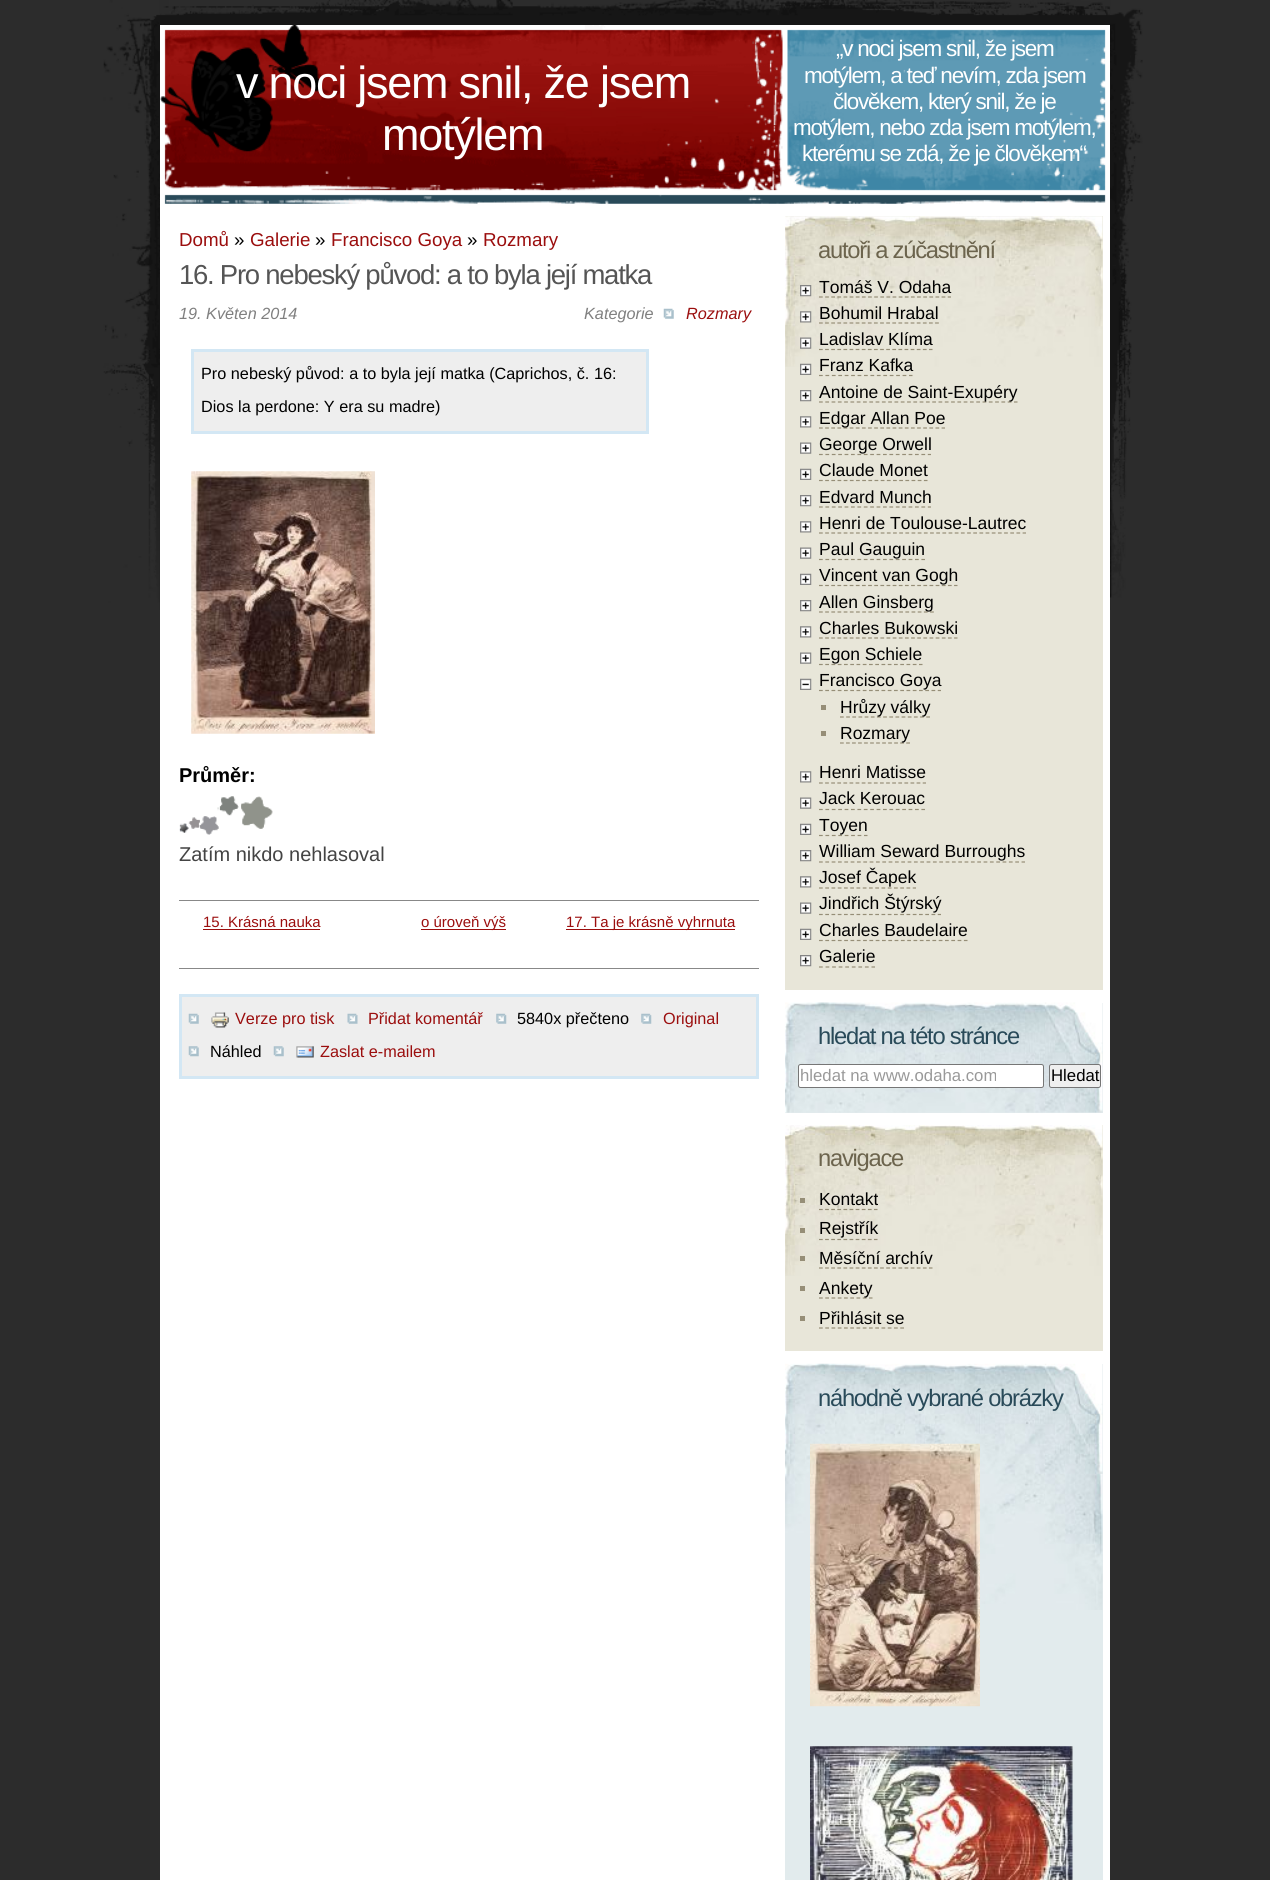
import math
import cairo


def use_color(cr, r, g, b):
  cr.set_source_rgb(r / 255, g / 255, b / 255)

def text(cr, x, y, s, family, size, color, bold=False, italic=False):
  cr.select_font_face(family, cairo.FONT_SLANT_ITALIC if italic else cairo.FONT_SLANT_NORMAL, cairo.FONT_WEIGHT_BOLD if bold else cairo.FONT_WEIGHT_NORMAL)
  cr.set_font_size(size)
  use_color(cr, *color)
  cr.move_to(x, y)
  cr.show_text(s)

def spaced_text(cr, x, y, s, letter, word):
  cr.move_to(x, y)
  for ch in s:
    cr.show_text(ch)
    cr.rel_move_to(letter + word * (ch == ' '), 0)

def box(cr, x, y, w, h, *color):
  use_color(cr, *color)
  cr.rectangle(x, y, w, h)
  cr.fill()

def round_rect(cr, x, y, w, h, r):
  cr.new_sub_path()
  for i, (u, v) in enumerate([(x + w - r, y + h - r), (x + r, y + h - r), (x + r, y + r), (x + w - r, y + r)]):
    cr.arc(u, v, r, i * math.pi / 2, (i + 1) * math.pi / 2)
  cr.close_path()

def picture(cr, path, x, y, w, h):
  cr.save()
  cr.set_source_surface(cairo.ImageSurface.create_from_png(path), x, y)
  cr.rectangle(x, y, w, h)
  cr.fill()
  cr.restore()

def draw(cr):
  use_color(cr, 44, 44, 44)
  cr.paint()
  picture(cr, "img_01.png", 103, 0, 1040, 610)
  box(cr, 160, 25, 950, 1855, 255, 255, 255)
  picture(cr, "img_02.png", 164, 25, 942, 179)
  picture(cr, "img_03.png", 160, 25, 162, 127)
  picture(cr, "img_04.png", 663, 308, 11, 11)
  use_color(cr, 238, 238, 238)
  cr.rectangle(192.5, 350.5, 455, 82)
  cr.fill_preserve()
  use_color(cr, 211, 231, 244)
  cr.set_line_width(3)
  cr.stroke()
  picture(cr, "img_05.png", 191, 471, 184, 263)
  picture(cr, "img_06.png", 179, 823, 10, 10)
  picture(cr, "img_07.png", 179, 823, 10, 10)
  picture(cr, "img_08.png", 188, 817, 12, 12)
  picture(cr, "img_09.png", 189, 817, 11, 12)
  picture(cr, "img_10.png", 200, 807, 19, 28)
  picture(cr, "img_11.png", 200, 807, 19, 28)
  picture(cr, "img_12.png", 219, 796, 20, 20)
  picture(cr, "img_13.png", 219, 796, 20, 20)
  picture(cr, "img_14.png", 241, 796, 32, 33)
  picture(cr, "img_15.png", 241, 796, 32, 33)
  box(cr, 179, 900, 580, 1, 136, 136, 136)
  box(cr, 179, 968, 580, 1, 136, 136, 136)
  box(cr, 203, 929, 117, 1, 155, 14, 14)
  box(cr, 421, 929, 85, 1, 155, 14, 14)
  box(cr, 566, 929, 169, 1, 155, 14, 14)
  use_color(cr, 238, 238, 238)
  cr.rectangle(180.5, 995.5, 577, 82)
  cr.fill_preserve()
  use_color(cr, 211, 231, 244)
  cr.stroke()
  picture(cr, "img_16.png", 188, 1013, 11, 11)
  picture(cr, "img_17.png", 211, 1012, 18, 16)
  picture(cr, "img_18.png", 347, 1013, 11, 11)
  picture(cr, "img_19.png", 496, 1013, 11, 11)
  picture(cr, "img_19.png", 641, 1013, 11, 11)
  picture(cr, "img_20.png", 188, 1046, 11, 11)
  picture(cr, "img_21.png", 273, 1046, 11, 11)
  picture(cr, "img_22.png", 296, 1046, 18, 12)
  box(cr, 785, 216, 318, 774, 232, 230, 217)
  picture(cr, "img_23.png", 785, 216, 318, 151)
  picture(cr, "img_24.png", 800, 285, 12, 12)
  cr.new_path()
  cr.move_to(819, 297)
  cr.line_to(951, 297)
  use_color(cr, 150, 142, 119)
  cr.set_line_width(1.2)
  cr.set_dash([3.75, 2.38])
  cr.stroke()
  picture(cr, "img_25.png", 800, 311, 12, 12)
  cr.new_path()
  cr.move_to(819, 323)
  cr.line_to(939, 323)
  cr.set_dash([3.75, 2.36])
  cr.stroke()
  picture(cr, "img_26.png", 800, 337, 12, 12)
  cr.new_path()
  cr.move_to(819, 349.5)
  cr.line_to(932.5, 349.5)
  cr.stroke()
  picture(cr, "img_27.png", 800, 363, 12, 12)
  cr.new_path()
  cr.move_to(819, 375.5)
  cr.line_to(912.5, 375.5)
  cr.set_dash([3.75, 2.68])
  cr.stroke()
  picture(cr, "img_28.png", 800, 390, 12, 12)
  cr.new_path()
  cr.move_to(819, 402)
  cr.line_to(1017.5, 402)
  cr.set_dash([3.75, 2.54])
  cr.stroke()
  picture(cr, "img_29.png", 800, 416, 12, 12)
  cr.new_path()
  cr.move_to(819, 428)
  cr.line_to(945, 428)
  cr.set_dash([3.75, 2.38])
  cr.stroke()
  picture(cr, "img_30.png", 800, 442, 12, 12)
  cr.new_path()
  cr.move_to(819, 454.5)
  cr.line_to(931, 454.5)
  cr.set_dash([3.75, 2.65])
  cr.stroke()
  picture(cr, "img_31.png", 800, 468, 12, 12)
  cr.new_path()
  cr.move_to(819, 480.5)
  cr.line_to(927.5, 480.5)
  cr.set_dash([3.75, 2.42])
  cr.stroke()
  picture(cr, "img_28.png", 800, 495, 12, 12)
  cr.new_path()
  cr.move_to(819, 507)
  cr.line_to(931, 507)
  cr.set_dash([3.75, 2.65])
  cr.stroke()
  picture(cr, "img_29.png", 800, 521, 12, 12)
  cr.new_path()
  cr.move_to(819, 533)
  cr.line_to(1026, 533)
  cr.set_dash([3.75, 2.42])
  cr.stroke()
  picture(cr, "img_30.png", 800, 547, 12, 12)
  cr.new_path()
  cr.move_to(819, 559.5)
  cr.line_to(925, 559.5)
  cr.set_dash([3.75, 2.65])
  cr.stroke()
  picture(cr, "img_31.png", 800, 573, 12, 12)
  cr.new_path()
  cr.move_to(819, 585.5)
  cr.line_to(957.5, 585.5)
  cr.set_dash([3.75, 2.39])
  cr.stroke()
  picture(cr, "img_28.png", 800, 600, 12, 12)
  cr.new_path()
  cr.move_to(819, 612)
  cr.line_to(934, 612)
  cr.set_dash([3.75, 2.42])
  cr.stroke()
  picture(cr, "img_29.png", 800, 626, 12, 12)
  cr.new_path()
  cr.move_to(819, 638)
  cr.line_to(957.5, 638)
  cr.set_dash([3.75, 2.39])
  cr.stroke()
  picture(cr, "img_30.png", 800, 652, 12, 12)
  cr.new_path()
  cr.move_to(819, 664.5)
  cr.line_to(922.5, 664.5)
  cr.set_dash([3.75, 2.5])
  cr.stroke()
  picture(cr, "img_32.png", 800, 678, 12, 12)
  cr.new_path()
  cr.move_to(819, 690.5)
  cr.line_to(941, 690.5)
  cr.stroke()
  box(cr, 821, 705, 5, 5, 150, 142, 119)
  cr.new_path()
  cr.move_to(840, 717)
  cr.line_to(930, 717)
  cr.set_dash([3.75, 2.41])
  cr.stroke()
  box(cr, 821, 731, 5, 5, 150, 142, 119)
  cr.new_path()
  cr.move_to(840, 743)
  cr.line_to(910, 743)
  cr.set_dash([3.75, 2.27])
  cr.stroke()
  picture(cr, "img_29.png", 800, 771, 12, 12)
  cr.new_path()
  cr.move_to(819, 783)
  cr.line_to(926, 783)
  cr.set_dash([3.75, 2.35])
  cr.stroke()
  picture(cr, "img_30.png", 800, 797, 12, 12)
  cr.new_path()
  cr.move_to(819, 809.5)
  cr.line_to(925, 809.5)
  cr.set_dash([3.75, 2.65])
  cr.stroke()
  picture(cr, "img_31.png", 800, 823, 12, 12)
  cr.new_path()
  cr.move_to(819, 835.5)
  cr.line_to(867.5, 835.5)
  cr.set_dash([3.75, 2.68])
  cr.stroke()
  picture(cr, "img_28.png", 800, 850, 12, 12)
  cr.new_path()
  cr.move_to(819, 862)
  cr.line_to(1025, 862)
  cr.set_dash([3.75, 2.58])
  cr.stroke()
  picture(cr, "img_29.png", 800, 876, 12, 12)
  cr.new_path()
  cr.move_to(819, 888)
  cr.line_to(916, 888)
  cr.set_dash([3.75, 2.5])
  cr.stroke()
  picture(cr, "img_30.png", 800, 902, 12, 12)
  cr.new_path()
  cr.move_to(819, 914.5)
  cr.line_to(941, 914.5)
  cr.stroke()
  picture(cr, "img_31.png", 800, 928, 12, 12)
  cr.new_path()
  cr.move_to(819, 940.5)
  cr.line_to(967.5, 940.5)
  cr.set_dash([3.75, 2.55])
  cr.stroke()
  picture(cr, "img_28.png", 800, 955, 12, 12)
  cr.new_path()
  cr.move_to(819, 967)
  cr.line_to(875, 967)
  cr.set_dash([3.75, 2.81])
  cr.stroke()
  box(cr, 785, 1003, 318, 110, 226, 235, 237)
  picture(cr, "img_33.png", 785, 1002, 318, 111)
  use_color(cr, 255, 255, 255)
  round_rect(cr, 798.5, 1064.5, 245, 23, 2)
  cr.fill_preserve()
  use_color(cr, 118, 118, 118)
  cr.set_line_width(1)
  cr.set_dash([])
  cr.stroke()
  use_color(cr, 239, 239, 239)
  round_rect(cr, 1049.5, 1064.5, 51, 23, 2)
  cr.fill_preserve()
  use_color(cr, 118, 118, 118)
  cr.stroke()
  box(cr, 785, 1125, 318, 226, 232, 230, 217)
  picture(cr, "img_34.png", 785, 1125, 318, 151)
  box(cr, 800, 1198, 5, 5, 150, 142, 119)
  cr.new_path()
  cr.move_to(819, 1209.5)
  cr.line_to(877.5, 1209.5)
  cr.set_line_width(1.2)
  cr.set_dash([3.75, 2.36])
  cr.stroke()
  box(cr, 800, 1228, 5, 5, 150, 142, 119)
  cr.new_path()
  cr.move_to(819, 1239.5)
  cr.line_to(877.5, 1239.5)
  cr.stroke()
  box(cr, 800, 1256, 5, 5, 150, 142, 119)
  cr.new_path()
  cr.move_to(819, 1268)
  cr.line_to(932.5, 1268)
  cr.stroke()
  box(cr, 800, 1286, 5, 5, 150, 142, 119)
  cr.new_path()
  cr.move_to(819, 1298)
  cr.line_to(872.5, 1298)
  cr.set_dash([3.75, 2.5])
  cr.stroke()
  box(cr, 800, 1316, 5, 5, 150, 142, 119)
  cr.new_path()
  cr.move_to(819, 1328)
  cr.line_to(904, 1328)
  cr.stroke()
  box(cr, 785, 1364, 318, 516, 226, 235, 237)
  picture(cr, "img_35.png", 785, 1363, 318, 247)
  picture(cr, "img_36.png", 810, 1443, 170, 264)
  picture(cr, "img_37.png", 810, 1746, 263, 134)
  cr.select_font_face("Liberation Sans")
  cr.set_font_size(45)
  use_color(cr, 255, 255, 255)
  spaced_text(cr, 236, 98, "v noci jsem snil, že jsem", -1.25, 0)
  spaced_text(cr, 382, 150, "motýlem", -1.25, 0)
  cr.set_font_size(22.5)
  spaced_text(cr, 836, 56, "„v noci jsem snil, že jsem", -1.25, 0)
  spaced_text(cr, 804, 83, "motýlem, a teď nevím, zda jsem", -1.25, 0)
  spaced_text(cr, 833, 109, "člověkem, který snil, že je", -1.25, 0)
  spaced_text(cr, 793, 135, "motýlem, nebo zda jsem motýlem,", -1.25, 0)
  spaced_text(cr, 802, 161, "kterému se zdá, že je člověkem“", -1.25, 0)
  text(cr, 179, 246, "Domů", "Liberation Sans", 18.75, (155, 14, 14))
  text(cr, 234, 246, "»", "Liberation Sans", 18.75, (0, 0, 0))
  text(cr, 250, 246, "Galerie", "Liberation Sans", 18.75, (155, 14, 14))
  text(cr, 315, 246, "»", "Liberation Sans", 18.75, (0, 0, 0))
  text(cr, 331, 246, "Francisco Goya", "Liberation Sans", 18.75, (155, 14, 14))
  text(cr, 467, 246, "»", "Liberation Sans", 18.75, (0, 0, 0))
  text(cr, 483, 246, "Rozmary", "Liberation Sans", 18.75, (155, 14, 14))
  cr.set_font_size(27.5)
  use_color(cr, 85, 85, 85)
  spaced_text(cr, 179, 284, "16. Pro nebeský původ: a to byla její matka", -1.25, 0)
  text(cr, 179, 319, "19. Květen 2014", "Liberation Sans", 16.25, (128, 128, 128), italic=True)
  text(cr, 584, 319, "Kategorie", "Liberation Sans", 16.25, (128, 128, 128), italic=True)
  text(cr, 686, 319, "Rozmary", "Liberation Sans", 16.25, (155, 14, 14), italic=True)
  text(cr, 201, 379, "Pro nebeský původ: a to byla její matka (Caprichos, č. 16:", "Liberation Sans", 16.25, (0, 0, 0))
  text(cr, 201, 412, "Dios la perdone: Y era su madre)", "Liberation Sans", 16.25, (0, 0, 0))
  text(cr, 179, 782, "Průměr:", "Liberation Sans", 20, (0, 0, 0), bold=True)
  text(cr, 179, 861, "Zatím nikdo nehlasoval", "Liberation Sans", 20, (68, 68, 68))
  text(cr, 203, 927, "15. Krásná nauka", "Liberation Sans", 15, (155, 14, 14))
  text(cr, 421, 927, "o úroveň výš", "Liberation Sans", 15, (155, 14, 14))
  text(cr, 566, 927, "17. Ta je krásně vyhrnuta", "Liberation Sans", 15, (155, 14, 14))
  text(cr, 235, 1024, "Verze pro tisk", "Liberation Sans", 16.25, (155, 14, 14))
  text(cr, 368, 1024, "Přidat komentář", "Liberation Sans", 16.25, (155, 14, 14))
  text(cr, 517, 1024, "5840x přečteno", "Liberation Sans", 16.25, (0, 0, 0))
  text(cr, 663, 1024, "Original", "Liberation Sans", 16.25, (155, 14, 14))
  text(cr, 210, 1057, "Náhled", "Liberation Sans", 16.25, (0, 0, 0))
  text(cr, 320, 1057, "Zaslat e-mailem", "Liberation Sans", 16.25, (155, 14, 14))
  cr.set_font_size(23.75)
  use_color(cr, 108, 100, 77)
  spaced_text(cr, 818, 258, "autoři a zúčastnění", -1.25, 0)
  text(cr, 819, 293, "Tomáš V. Odaha", "Liberation Sans", 17.5, (0, 0, 0))
  text(cr, 819, 319, "Bohumil Hrabal", "Liberation Sans", 17.5, (0, 0, 0))
  text(cr, 819, 345, "Ladislav Klíma", "Liberation Sans", 17.5, (0, 0, 0))
  text(cr, 819, 371, "Franz Kafka", "Liberation Sans", 17.5, (0, 0, 0))
  text(cr, 819, 398, "Antoine de Saint-Exupéry", "Liberation Sans", 17.5, (0, 0, 0))
  text(cr, 819, 424, "Edgar Allan Poe", "Liberation Sans", 17.5, (0, 0, 0))
  text(cr, 819, 450, "George Orwell", "Liberation Sans", 17.5, (0, 0, 0))
  text(cr, 819, 476, "Claude Monet", "Liberation Sans", 17.5, (0, 0, 0))
  text(cr, 819, 503, "Edvard Munch", "Liberation Sans", 17.5, (0, 0, 0))
  text(cr, 819, 529, "Henri de Toulouse-Lautrec", "Liberation Sans", 17.5, (0, 0, 0))
  text(cr, 819, 555, "Paul Gauguin", "Liberation Sans", 17.5, (0, 0, 0))
  text(cr, 819, 581, "Vincent van Gogh", "Liberation Sans", 17.5, (0, 0, 0))
  text(cr, 819, 608, "Allen Ginsberg", "Liberation Sans", 17.5, (0, 0, 0))
  text(cr, 819, 634, "Charles Bukowski", "Liberation Sans", 17.5, (0, 0, 0))
  text(cr, 819, 660, "Egon Schiele", "Liberation Sans", 17.5, (0, 0, 0))
  text(cr, 819, 686, "Francisco Goya", "Liberation Sans", 17.5, (0, 0, 0))
  text(cr, 840, 713, "Hrůzy války", "Liberation Sans", 17.5, (0, 0, 0))
  text(cr, 840, 739, "Rozmary", "Liberation Sans", 17.5, (0, 0, 0))
  text(cr, 819, 778, "Henri Matisse", "Liberation Sans", 17.5, (0, 0, 0))
  text(cr, 819, 804, "Jack Kerouac", "Liberation Sans", 17.5, (0, 0, 0))
  text(cr, 819, 831, "Toyen", "Liberation Sans", 17.5, (0, 0, 0))
  text(cr, 819, 857, "William Seward Burroughs", "Liberation Sans", 17.5, (0, 0, 0))
  text(cr, 819, 883, "Josef Čapek", "Liberation Sans", 17.5, (0, 0, 0))
  text(cr, 819, 909, "Jindřich Štýrský", "Liberation Sans", 17.5, (0, 0, 0))
  text(cr, 819, 936, "Charles Baudelaire", "Liberation Sans", 17.5, (0, 0, 0))
  text(cr, 819, 962, "Galerie", "Liberation Sans", 17.5, (0, 0, 0))
  cr.set_font_size(23.75)
  use_color(cr, 41, 74, 89)
  spaced_text(cr, 818, 1044, "hledat na této stránce", -1.25, 0)
  text(cr, 800, 1081, "hledat na www.odaha.com", "Liberation Sans", 16.75, (153, 153, 153))
  text(cr, 1051, 1081, "Hledat", "Liberation Sans", 16.75, (0, 0, 0))
  cr.set_font_size(23.75)
  use_color(cr, 108, 100, 77)
  spaced_text(cr, 818, 1166, "navigace", -1.25, 0)
  text(cr, 819, 1205, "Kontakt", "Liberation Sans", 17.5, (0, 0, 0))
  text(cr, 819, 1234, "Rejstřík", "Liberation Sans", 17.5, (0, 0, 0))
  text(cr, 819, 1264, "Měsíční archív", "Liberation Sans", 17.5, (0, 0, 0))
  text(cr, 819, 1294, "Ankety", "Liberation Sans", 17.5, (0, 0, 0))
  text(cr, 819, 1324, "Přihlásit se", "Liberation Sans", 17.5, (0, 0, 0))
  cr.set_font_size(23.75)
  use_color(cr, 41, 74, 89)
  spaced_text(cr, 818, 1406, "náhodně vybrané obrázky", -1.25, 0)


surface = cairo.ImageSurface(cairo.FORMAT_RGB24, 1270, 1880)
cr = cairo.Context(surface)
options = cairo.FontOptions()
options.set_hint_metrics(cairo.HINT_METRICS_OFF)
options.set_hint_style(cairo.HINT_STYLE_NONE)
cr.set_font_options(options)
cr.set_miter_limit(4)
draw(cr)
surface.write_to_png("out.png")
